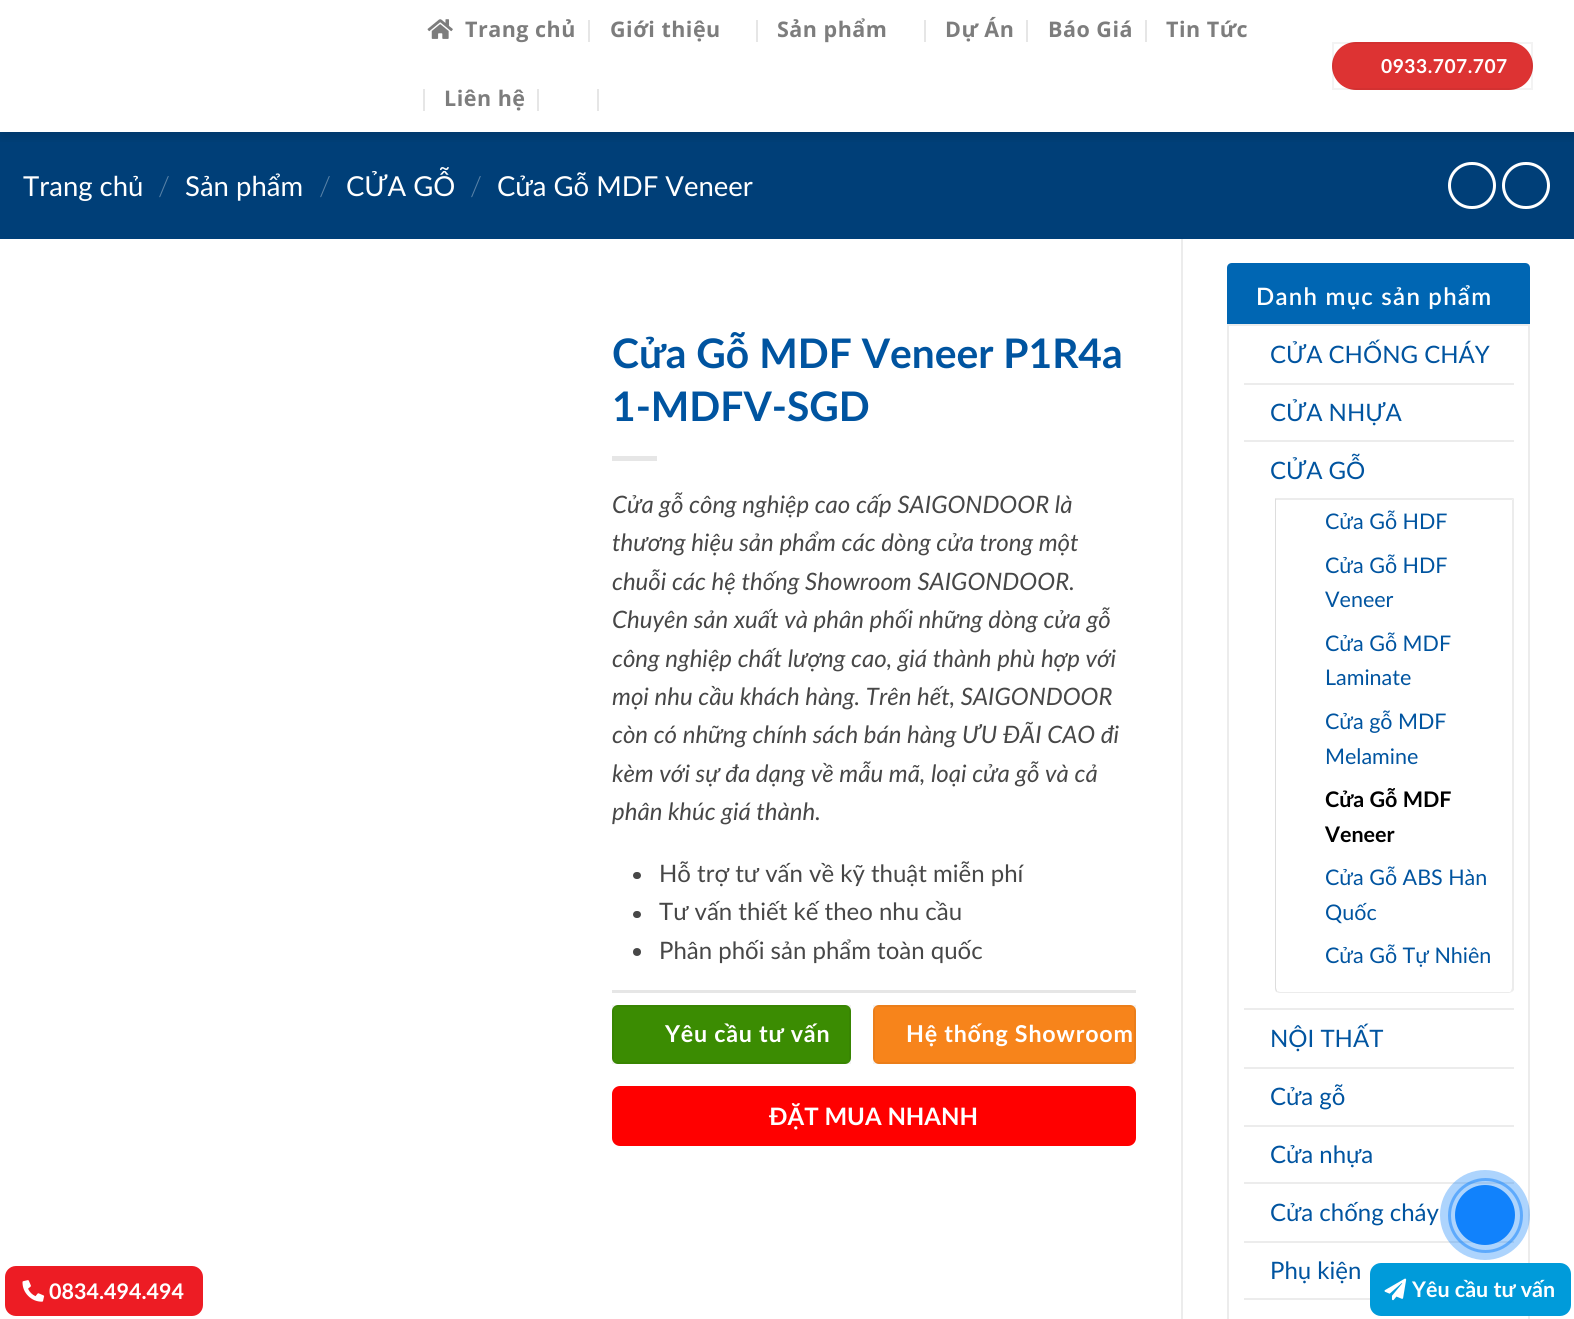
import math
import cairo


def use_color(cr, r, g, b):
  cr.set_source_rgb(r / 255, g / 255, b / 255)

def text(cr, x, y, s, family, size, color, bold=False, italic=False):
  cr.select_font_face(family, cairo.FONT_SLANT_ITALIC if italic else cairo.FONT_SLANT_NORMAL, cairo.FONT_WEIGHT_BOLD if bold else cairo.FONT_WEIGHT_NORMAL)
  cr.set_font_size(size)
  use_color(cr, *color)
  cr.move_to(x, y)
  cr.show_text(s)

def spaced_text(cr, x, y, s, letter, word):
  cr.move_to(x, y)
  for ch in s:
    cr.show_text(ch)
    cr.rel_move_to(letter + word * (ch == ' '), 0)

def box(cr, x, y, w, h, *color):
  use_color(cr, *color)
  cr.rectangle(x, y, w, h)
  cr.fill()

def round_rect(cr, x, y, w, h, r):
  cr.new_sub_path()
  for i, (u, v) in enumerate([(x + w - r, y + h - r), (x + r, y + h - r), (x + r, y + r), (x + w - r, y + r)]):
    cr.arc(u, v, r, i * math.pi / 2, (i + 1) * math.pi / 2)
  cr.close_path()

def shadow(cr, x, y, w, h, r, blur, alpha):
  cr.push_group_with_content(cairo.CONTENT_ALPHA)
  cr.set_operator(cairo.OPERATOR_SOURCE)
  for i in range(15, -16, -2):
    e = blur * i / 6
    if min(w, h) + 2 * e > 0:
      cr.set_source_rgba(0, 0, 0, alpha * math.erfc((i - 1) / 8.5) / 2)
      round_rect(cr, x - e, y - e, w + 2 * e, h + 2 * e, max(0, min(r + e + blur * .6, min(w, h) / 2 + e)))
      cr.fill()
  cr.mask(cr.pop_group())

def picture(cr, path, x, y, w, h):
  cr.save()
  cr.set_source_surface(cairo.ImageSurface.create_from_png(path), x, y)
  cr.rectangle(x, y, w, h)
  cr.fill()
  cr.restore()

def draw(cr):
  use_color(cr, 255, 255, 255)
  cr.paint()
  box(cr, 0, 132, 1574, 107, 0, 63, 120)
  cr.save()
  cr.rectangle(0, 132, 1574, 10)
  cr.clip()
  use_color(cr, 0, 0, 0)
  shadow(cr, 2, 2, 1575, 132, 0, 7.5, 0.15)
  cr.restore()
  picture(cr, "img_01.png", 427, 19, 26, 20)
  box(cr, 588, 20, 2, 22, 230, 230, 230)
  box(cr, 756, 20, 2, 22, 230, 230, 230)
  box(cr, 924, 20, 2, 22, 230, 230, 230)
  box(cr, 1026, 20, 2, 22, 230, 230, 230)
  box(cr, 1145, 20, 2, 22, 230, 230, 230)
  box(cr, 423, 89, 2, 22, 230, 230, 230)
  box(cr, 537, 89, 2, 22, 230, 230, 230)
  box(cr, 597, 89, 2, 22, 230, 230, 230)
  use_color(cr, 221, 51, 51)
  round_rect(cr, 1332, 42, 201, 48, 24)
  cr.fill()
  cr.rectangle(1333, 43, 199, 46)
  cr.set_source_rgba(0, 0, 0, 0.05)
  cr.stroke()
  round_rect(cr, 1449.5, 163.5, 45, 44, 22)
  use_color(cr, 255, 255, 255)
  cr.set_line_width(3)
  cr.stroke()
  round_rect(cr, 1503.5, 163.5, 45, 44, 22)
  cr.stroke()
  box(cr, 1181, 239, 2, 1080, 236, 236, 236)
  box(cr, 612, 456, 45, 5, 230, 230, 230)
  use_color(cr, 71, 71, 71)
  round_rect(cr, 633, 872, 8, 7, 3.5)
  cr.fill()
  round_rect(cr, 633, 911, 8, 7, 3.5)
  cr.fill()
  cr.arc(637, 952, 4, 0, 2 * math.pi)
  cr.fill()
  box(cr, 612, 990, 524, 3, 230, 230, 230)
  use_color(cr, 59, 140, 2)
  round_rect(cr, 612, 1005, 239, 59, 6)
  cr.fill()
  cr.rectangle(613, 1006, 237, 57)
  cr.set_source_rgba(0, 0, 0, 0.05)
  cr.set_line_width(2)
  cr.stroke()
  use_color(cr, 247, 132, 27)
  round_rect(cr, 873, 1005, 263, 59, 6)
  cr.fill()
  cr.rectangle(874, 1006, 261, 57)
  cr.set_source_rgba(0, 0, 0, 0.05)
  cr.stroke()
  use_color(cr, 255, 0, 0)
  round_rect(cr, 612, 1086, 524, 60, 8)
  cr.fill()
  use_color(cr, 0, 102, 179)
  cr.new_path()
  cr.move_to(1232, 263)
  cr.line_to(1525, 263)
  cr.curve_to(1528, 263, 1530, 265, 1530, 268)
  cr.line_to(1530, 324)
  cr.line_to(1227, 324)
  cr.line_to(1227, 268)
  cr.curve_to(1227, 265, 1229, 263, 1232, 263)
  cr.close_path()
  cr.fill()
  cr.rectangle(1228, 325, 301, 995)
  use_color(cr, 236, 236, 236)
  cr.stroke()
  box(cr, 1244, 383, 270, 2, 236, 236, 236)
  box(cr, 1244, 440, 270, 2, 236, 236, 236)
  cr.new_path()
  cr.move_to(1275, 498)
  cr.line_to(1277, 500)
  cr.line_to(1512, 500)
  cr.line_to(1514, 498)
  cr.close_path()
  cr.fill()
  cr.new_path()
  cr.move_to(1514, 498)
  cr.line_to(1514, 990)
  cr.line_to(1512, 992)
  cr.line_to(1511, 991)
  cr.line_to(1512, 988)
  cr.line_to(1512, 500)
  cr.close_path()
  cr.fill()
  cr.new_path()
  cr.move_to(1280, 993)
  cr.line_to(1509, 993)
  cr.line_to(1512, 992)
  cr.line_to(1511, 991)
  cr.line_to(1510, 992)
  cr.line_to(1280, 992)
  cr.line_to(1277, 991)
  cr.line_to(1276, 992)
  cr.curve_to(1277, 992, 1278, 993, 1280, 993)
  cr.close_path()
  cr.fill()
  use_color(cr, 221, 221, 221)
  cr.new_path()
  cr.move_to(1276, 500)
  cr.line_to(1277, 500)
  cr.line_to(1275, 498)
  cr.line_to(1275, 988)
  cr.curve_to(1275, 990, 1276, 991, 1276, 992)
  cr.line_to(1277, 991)
  cr.line_to(1276, 988)
  cr.close_path()
  cr.fill()
  box(cr, 1244, 1008, 270, 2, 236, 236, 236)
  box(cr, 1244, 1067, 270, 2, 236, 236, 236)
  box(cr, 1244, 1125, 270, 2, 236, 236, 236)
  box(cr, 1244, 1182, 270, 2, 236, 236, 236)
  box(cr, 1244, 1241, 270, 2, 236, 236, 236)
  box(cr, 1244, 1298, 126, 2, 236, 236, 236)
  cr.arc(1485.5, 1215.5, 36, 0, 2 * math.pi)
  cr.set_source_rgba(0.067, 0.51, 0.988, 0.5)
  cr.set_line_width(3)
  cr.stroke()
  cr.set_source_rgba(0.067, 0.51, 0.988, 0.34)
  cr.arc(1485, 1215, 45, 0, 2 * math.pi)
  cr.fill()
  use_color(cr, 17, 130, 252)
  cr.arc(1485, 1215, 30, 0, 2 * math.pi)
  cr.fill()
  use_color(cr, 237, 28, 36)
  round_rect(cr, 5, 1266, 198, 50, 11)
  cr.fill()
  picture(cr, "img_02.png", 22, 1280, 23, 22)
  use_color(cr, 0, 155, 218)
  round_rect(cr, 1370, 1263, 201, 53, 11)
  cr.fill()
  picture(cr, "img_03.png", 1384, 1278, 23, 23)
  cr.select_font_face("Open Sans", cairo.FONT_SLANT_NORMAL, cairo.FONT_WEIGHT_BOLD)
  cr.set_font_size(21.5)
  use_color(cr, 125, 125, 125)
  spaced_text(cr, 465, 37, "Trang chủ", 0.5, 0)
  spaced_text(cr, 610, 37, "Giới thiệu", 0.5, 0)
  spaced_text(cr, 777, 37, "Sản phẩm", 0.5, 0)
  spaced_text(cr, 945, 37, "Dự Án", 0.5, 0)
  spaced_text(cr, 1048, 37, "Báo Giá", 0.5, 0)
  spaced_text(cr, 1166, 37, "Tin Tức", 0.5, 0)
  spaced_text(cr, 444, 106, "Liên hệ", 0.5, 0)
  cr.select_font_face("Lato", cairo.FONT_SLANT_NORMAL, cairo.FONT_WEIGHT_BOLD)
  cr.set_font_size(19.25)
  use_color(cr, 255, 255, 255)
  spaced_text(cr, 1381, 73, "0933.707.707", 0.5, 0)
  text(cr, 23, 196, "Trang chủ", "Lato", 27.5, (255, 255, 255))
  text(cr, 158, 196, "/", "Lato Light", 27.5, (89, 130, 167))
  text(cr, 185, 196, "Sản phẩm", "Lato", 27.5, (255, 255, 255))
  text(cr, 319, 196, "/", "Lato Light", 27.5, (89, 130, 167))
  text(cr, 346, 196, "CỬA GỖ", "Lato", 27.5, (255, 255, 255))
  text(cr, 470, 196, "/", "Lato Light", 27.5, (89, 130, 167))
  text(cr, 497, 196, "Cửa Gỗ MDF Veneer", "Lato", 27.5, (255, 255, 255))
  text(cr, 612, 368, "Cửa Gỗ MDF Veneer P1R4a", "Lato", 40.75, (0, 84, 160), bold=True)
  text(cr, 612, 421, "1-MDFV-SGD", "Lato", 40.75, (0, 84, 160), bold=True)
  text(cr, 612, 513, "Cửa gỗ công nghiệp cao cấp SAIGONDOOR là", "Lato", 24, (71, 71, 71), italic=True)
  text(cr, 612, 551, "thương hiệu sản phẩm các dòng cửa trong một", "Lato", 24, (71, 71, 71), italic=True)
  text(cr, 612, 590, "chuỗi các hệ thống Showroom SAIGONDOOR.", "Lato", 24, (71, 71, 71), italic=True)
  text(cr, 612, 628, "Chuyên sản xuất và phân phối những dòng cửa gỗ", "Lato", 24, (71, 71, 71), italic=True)
  text(cr, 612, 667, "công nghiệp chất lượng cao, giá thành phù hợp với", "Lato", 24, (71, 71, 71), italic=True)
  text(cr, 612, 705, "mọi nhu cầu khách hàng. Trên hết, SAIGONDOOR", "Lato", 24, (71, 71, 71), italic=True)
  text(cr, 612, 743, "còn có những chính sách bán hàng ƯU ĐÃI CAO đi", "Lato", 24, (71, 71, 71), italic=True)
  text(cr, 612, 782, "kèm với sự đa dạng về mẫu mã, loại cửa gỗ và cả", "Lato", 24, (71, 71, 71), italic=True)
  text(cr, 612, 820, "phân khúc giá thành.", "Lato", 24, (71, 71, 71), italic=True)
  text(cr, 659, 882, "Hỗ trợ tư vấn về kỹ thuật miễn phí", "Lato", 24, (71, 71, 71))
  text(cr, 659, 920, "Tư vấn thiết kế theo nhu cầu", "Lato", 24, (71, 71, 71))
  text(cr, 659, 959, "Phân phối sản phẩm toàn quốc", "Lato", 24, (71, 71, 71))
  cr.select_font_face("Lato", cairo.FONT_SLANT_NORMAL, cairo.FONT_WEIGHT_BOLD)
  cr.set_font_size(23.25)
  use_color(cr, 255, 255, 255)
  spaced_text(cr, 665, 1042, "Yêu cầu tư vấn", 0.75, 0)
  spaced_text(cr, 906, 1042, "Hệ thống Showroom", 0.75, 0)
  text(cr, 769, 1125, "ĐẶT MUA NHANH", "Lato", 24, (255, 255, 255), bold=True)
  cr.select_font_face("Lato SemiBold")
  spaced_text(cr, 1256, 305, "Danh mục sản phẩm", 1.25, 0)
  text(cr, 1270, 363, "CỬA CHỐNG CHÁY", "Lato", 24, (0, 84, 160))
  text(cr, 1270, 421, "CỬA NHỰA", "Lato", 24, (0, 84, 160))
  text(cr, 1270, 479, "CỬA GỖ", "Lato", 24, (0, 84, 160))
  text(cr, 1325, 529, "Cửa Gỗ HDF", "Lato", 21.5, (0, 84, 160))
  text(cr, 1325, 573, "Cửa Gỗ HDF", "Lato", 21.5, (0, 84, 160))
  text(cr, 1325, 607, "Veneer", "Lato", 21.5, (0, 84, 160))
  text(cr, 1325, 651, "Cửa Gỗ MDF", "Lato", 21.5, (0, 84, 160))
  text(cr, 1325, 685, "Laminate", "Lato", 21.5, (0, 84, 160))
  text(cr, 1325, 729, "Cửa gỗ MDF", "Lato", 21.5, (0, 84, 160))
  text(cr, 1325, 764, "Melamine", "Lato", 21.5, (0, 84, 160))
  text(cr, 1325, 807, "Cửa Gỗ MDF", "Lato", 21.5, (0, 0, 0), bold=True)
  text(cr, 1325, 842, "Veneer", "Lato", 21.5, (0, 0, 0), bold=True)
  text(cr, 1325, 885, "Cửa Gỗ ABS Hàn", "Lato", 21.5, (0, 84, 160))
  text(cr, 1325, 920, "Quốc", "Lato", 21.5, (0, 84, 160))
  text(cr, 1325, 963, "Cửa Gỗ Tự Nhiên", "Lato", 21.5, (0, 84, 160))
  text(cr, 1270, 1047, "NỘI THẤT", "Lato", 24, (0, 84, 160))
  text(cr, 1270, 1105, "Cửa gỗ", "Lato", 24, (0, 84, 160))
  text(cr, 1270, 1163, "Cửa nhựa", "Lato", 24, (0, 84, 160))
  text(cr, 1270, 1221, "Cửa chống cháy", "Lato", 24, (0, 84, 160))
  text(cr, 1270, 1279, "Phụ kiện", "Lato", 24, (0, 84, 160))
  text(cr, 49, 1299, "0834.494.494", "Lato", 21.5, (255, 255, 255), bold=True)
  text(cr, 1412, 1297, "Yêu cầu tư vấn", "Lato", 21.5, (255, 255, 255), bold=True)


surface = cairo.ImageSurface(cairo.FORMAT_RGB24, 1574, 1319)
cr = cairo.Context(surface)
options = cairo.FontOptions()
options.set_hint_metrics(cairo.HINT_METRICS_OFF)
options.set_hint_style(cairo.HINT_STYLE_NONE)
cr.set_font_options(options)
cr.set_miter_limit(4)
draw(cr)
surface.write_to_png("out.png")
